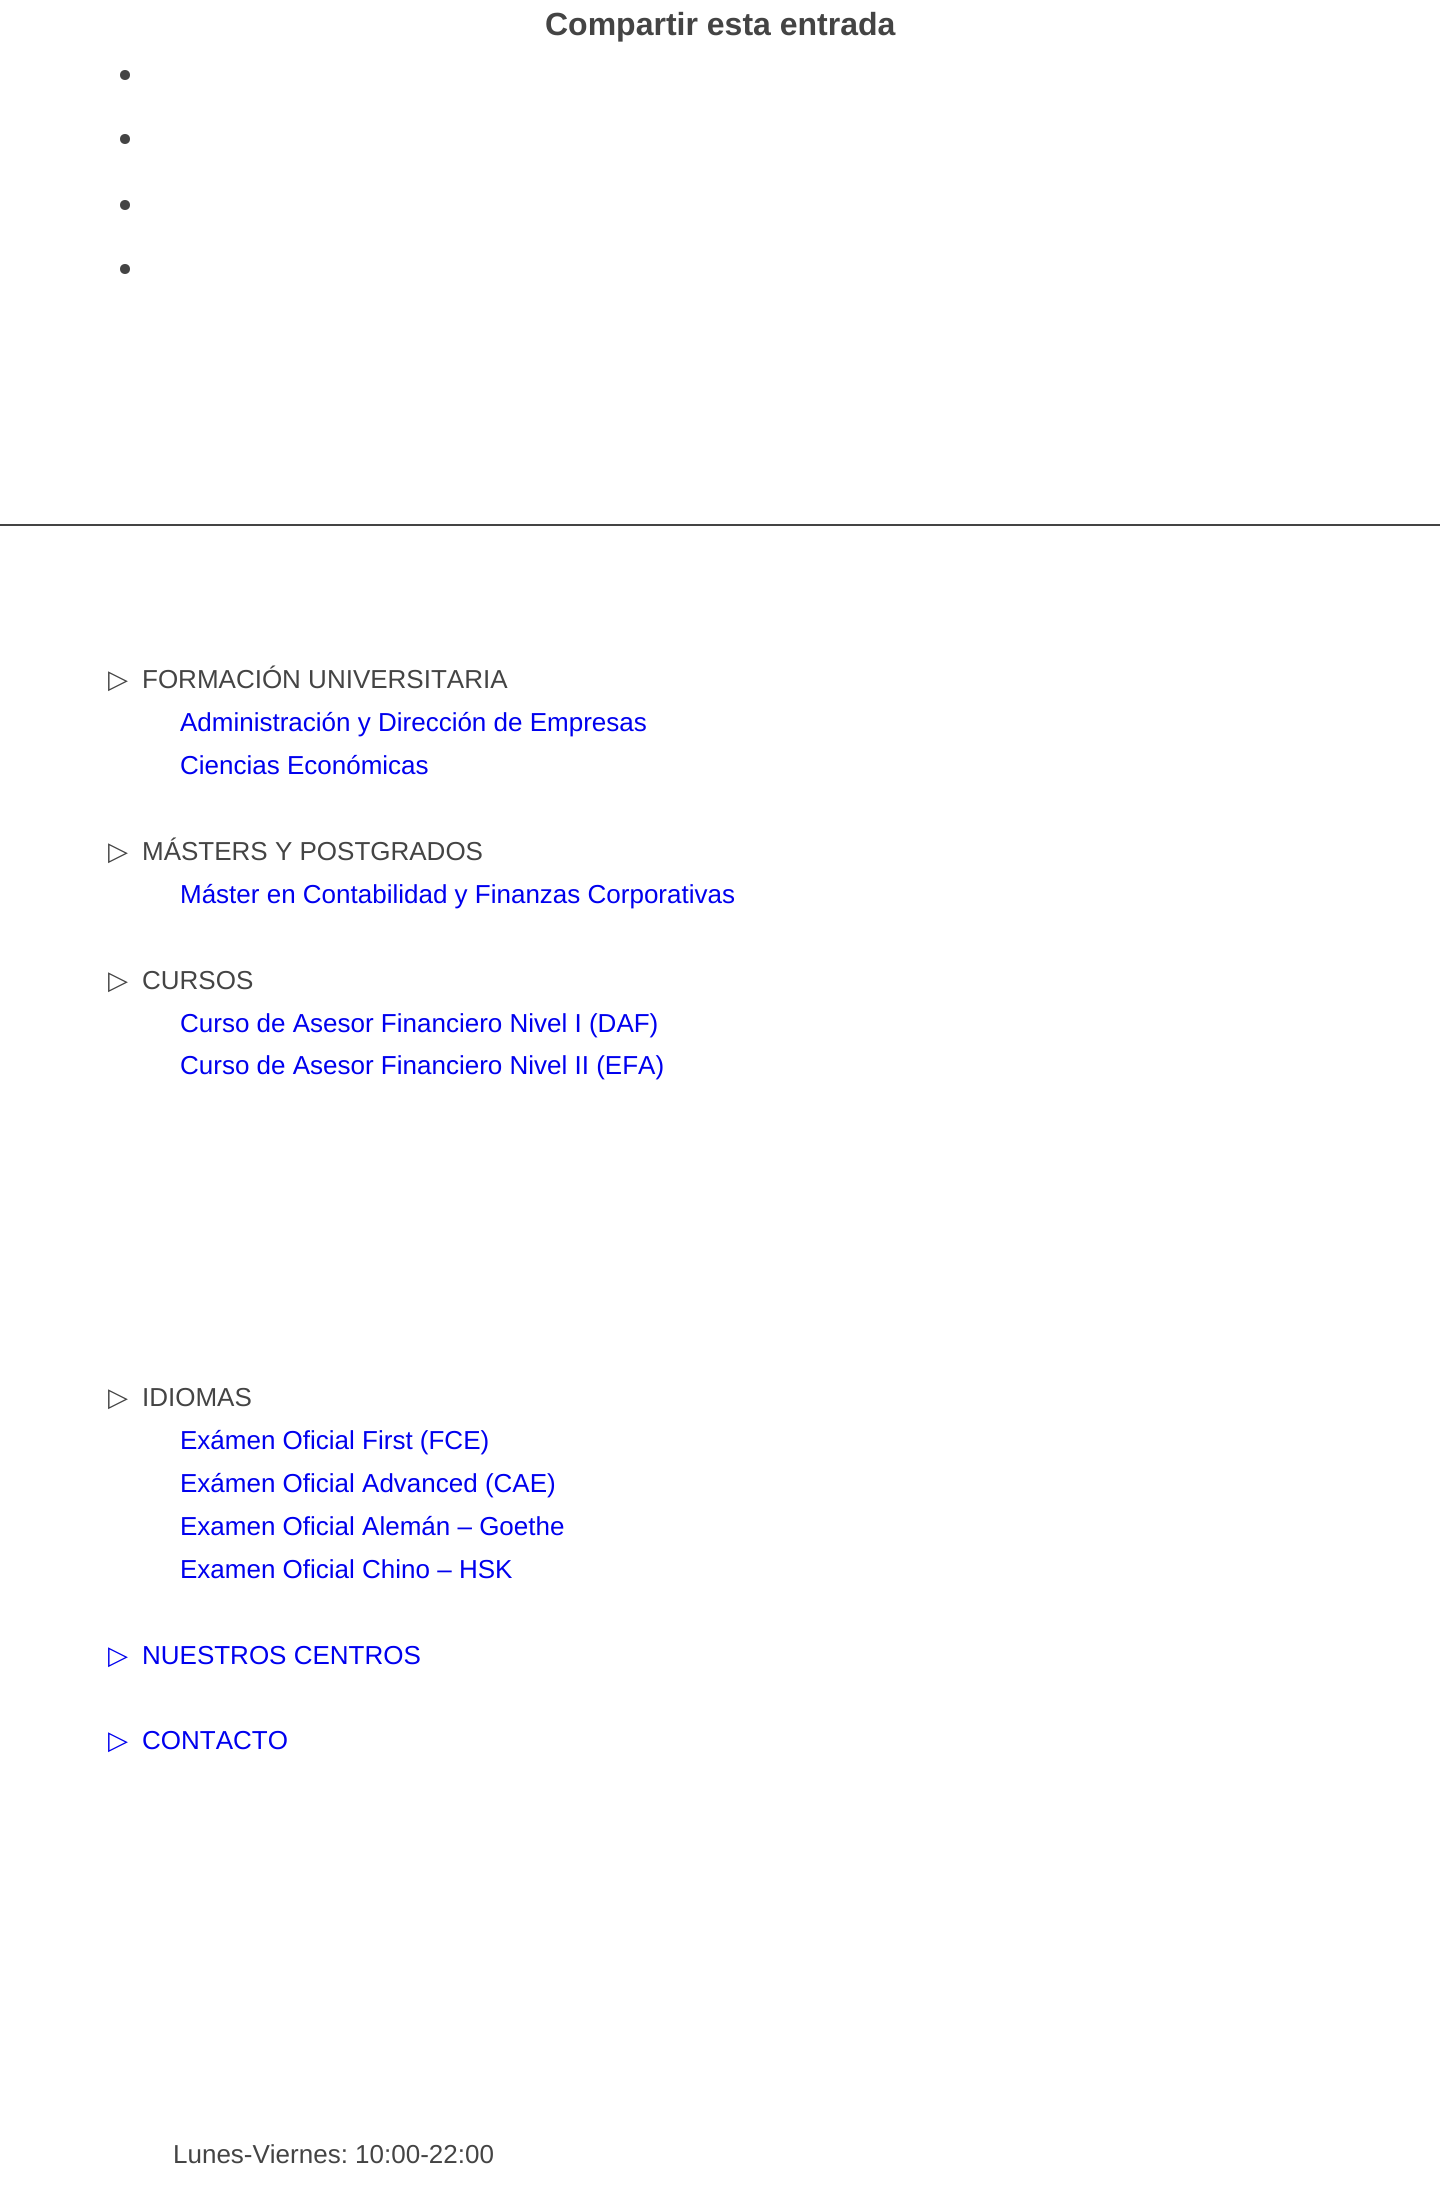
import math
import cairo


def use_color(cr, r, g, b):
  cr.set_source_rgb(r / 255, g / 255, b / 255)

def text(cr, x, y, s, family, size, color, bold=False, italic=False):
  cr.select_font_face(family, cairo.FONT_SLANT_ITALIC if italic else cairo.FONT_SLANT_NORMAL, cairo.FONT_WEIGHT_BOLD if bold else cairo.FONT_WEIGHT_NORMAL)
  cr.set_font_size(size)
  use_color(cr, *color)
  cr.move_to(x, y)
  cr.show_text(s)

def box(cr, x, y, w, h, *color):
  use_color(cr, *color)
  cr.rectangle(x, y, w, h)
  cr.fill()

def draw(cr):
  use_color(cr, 255, 255, 255)
  cr.paint()
  use_color(cr, 68, 68, 68)
  cr.arc(125, 75, 5, 0, 2 * math.pi)
  cr.fill()
  cr.arc(125, 139, 5, 0, 2 * math.pi)
  cr.fill()
  cr.arc(125, 205, 5, 0, 2 * math.pi)
  cr.fill()
  cr.arc(125, 269, 5, 0, 2 * math.pi)
  cr.fill()
  box(cr, 0, 524, 1440, 2, 68, 68, 68)
  text(cr, 545, 35, "Compartir esta entrada", "Liberation Sans", 32, (68, 68, 68), bold=True)
  text(cr, 108, 688, "▷", "DejaVu Sans", 26, (68, 68, 68))
  text(cr, 142, 688, "FORMACIÓN UNIVERSITARIA", "Liberation Sans", 26, (68, 68, 68))
  text(cr, 180, 731, "Administración y Dirección de Empresas", "Liberation Sans", 26, (0, 0, 238))
  text(cr, 180, 774, "Ciencias Económicas", "Liberation Sans", 26, (0, 0, 238))
  text(cr, 108, 860, "▷", "DejaVu Sans", 26, (68, 68, 68))
  text(cr, 142, 860, "MÁSTERS Y POSTGRADOS", "Liberation Sans", 26, (68, 68, 68))
  text(cr, 180, 903, "Máster en Contabilidad y Finanzas Corporativas", "Liberation Sans", 26, (0, 0, 238))
  text(cr, 108, 989, "▷", "DejaVu Sans", 26, (68, 68, 68))
  text(cr, 142, 989, "CURSOS", "Liberation Sans", 26, (68, 68, 68))
  text(cr, 180, 1032, "Curso de Asesor Financiero Nivel I (DAF)", "Liberation Sans", 26, (0, 0, 238))
  text(cr, 180, 1074, "Curso de Asesor Financiero Nivel II (EFA)", "Liberation Sans", 26, (0, 0, 238))
  text(cr, 108, 1406, "▷", "DejaVu Sans", 26, (68, 68, 68))
  text(cr, 142, 1406, "IDIOMAS", "Liberation Sans", 26, (68, 68, 68))
  text(cr, 180, 1449, "Exámen Oficial First (FCE)", "Liberation Sans", 26, (0, 0, 238))
  text(cr, 180, 1492, "Exámen Oficial Advanced (CAE)", "Liberation Sans", 26, (0, 0, 238))
  text(cr, 180, 1535, "Examen Oficial Alemán – Goethe", "Liberation Sans", 26, (0, 0, 238))
  text(cr, 180, 1578, "Examen Oficial Chino – HSK", "Liberation Sans", 26, (0, 0, 238))
  text(cr, 108, 1664, "▷", "DejaVu Sans", 26, (0, 0, 238))
  text(cr, 142, 1664, "NUESTROS CENTROS", "Liberation Sans", 26, (0, 0, 238))
  text(cr, 108, 1749, "▷", "DejaVu Sans", 26, (0, 0, 238))
  text(cr, 142, 1749, "CONTACTO", "Liberation Sans", 26, (0, 0, 238))
  text(cr, 173, 2163, "Lunes-Viernes: 10:00-22:00", "Liberation Sans", 26, (68, 68, 68))


surface = cairo.ImageSurface(cairo.FORMAT_RGB24, 1440, 2189)
cr = cairo.Context(surface)
options = cairo.FontOptions()
options.set_hint_metrics(cairo.HINT_METRICS_OFF)
options.set_hint_style(cairo.HINT_STYLE_NONE)
cr.set_font_options(options)
cr.set_miter_limit(4)
draw(cr)
surface.write_to_png("out.png")
